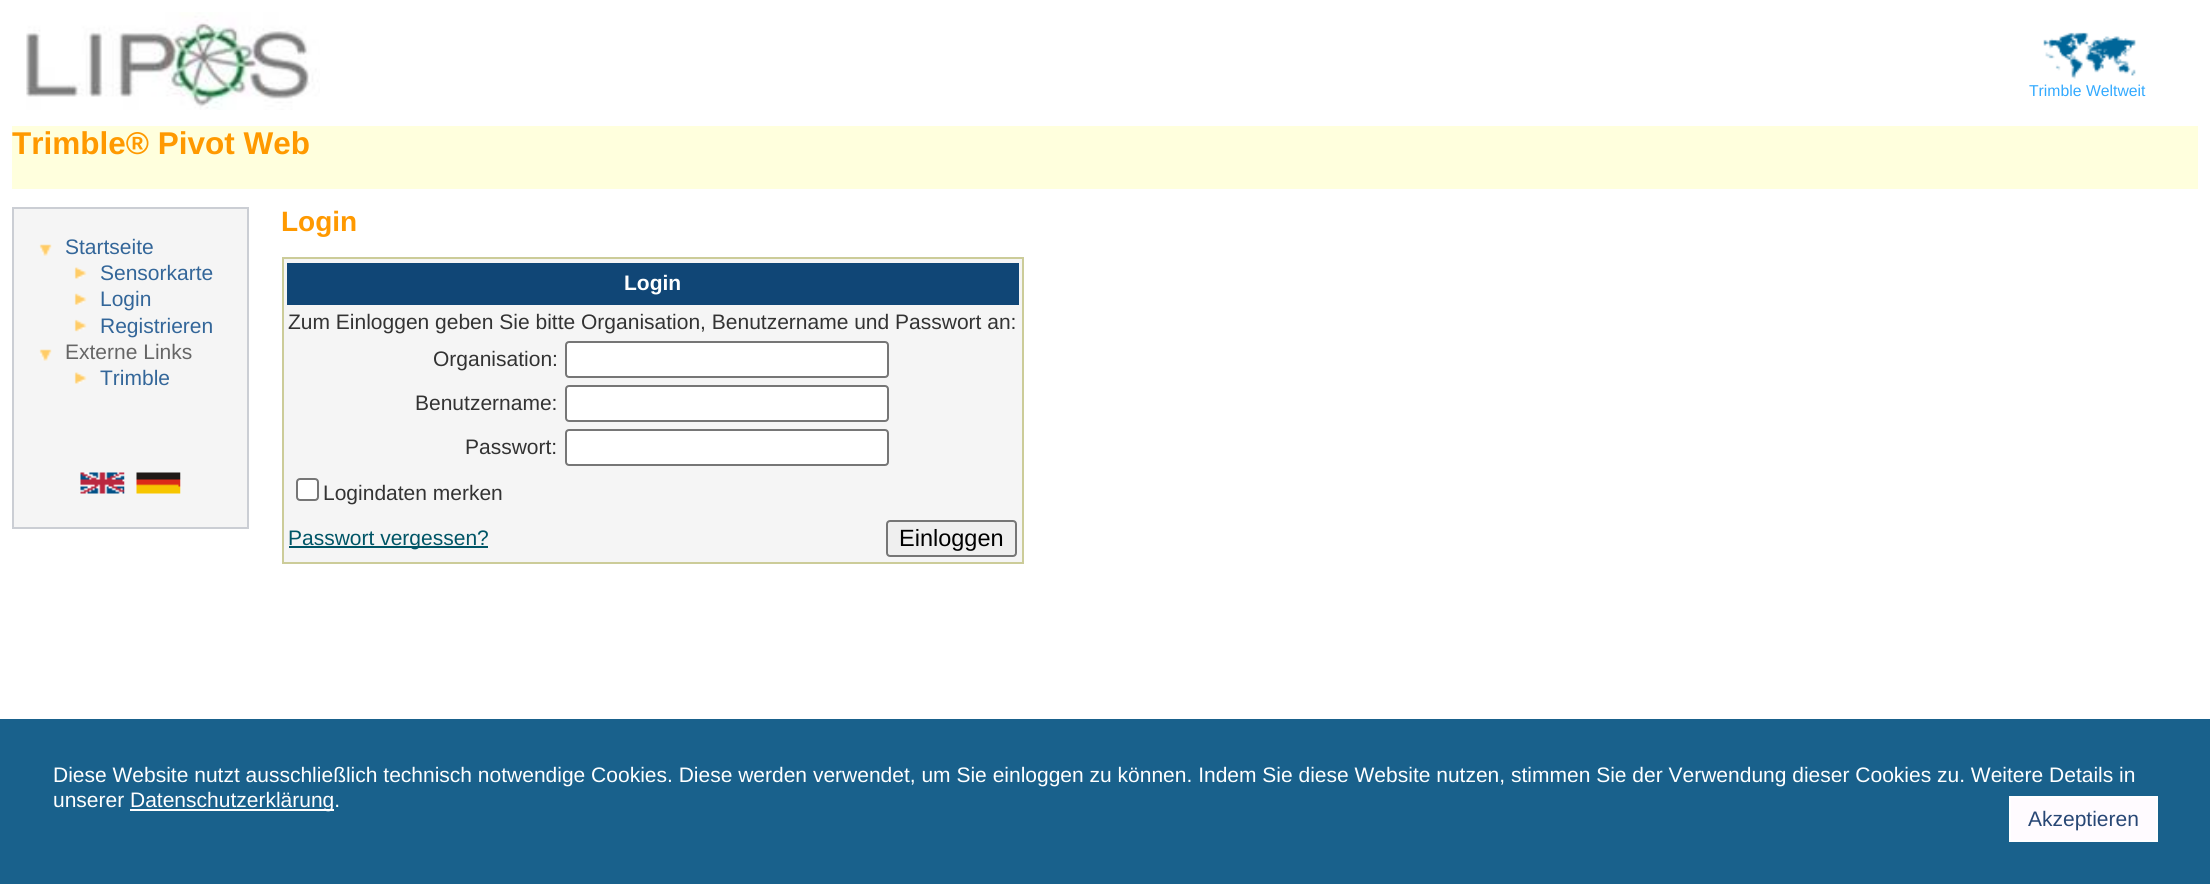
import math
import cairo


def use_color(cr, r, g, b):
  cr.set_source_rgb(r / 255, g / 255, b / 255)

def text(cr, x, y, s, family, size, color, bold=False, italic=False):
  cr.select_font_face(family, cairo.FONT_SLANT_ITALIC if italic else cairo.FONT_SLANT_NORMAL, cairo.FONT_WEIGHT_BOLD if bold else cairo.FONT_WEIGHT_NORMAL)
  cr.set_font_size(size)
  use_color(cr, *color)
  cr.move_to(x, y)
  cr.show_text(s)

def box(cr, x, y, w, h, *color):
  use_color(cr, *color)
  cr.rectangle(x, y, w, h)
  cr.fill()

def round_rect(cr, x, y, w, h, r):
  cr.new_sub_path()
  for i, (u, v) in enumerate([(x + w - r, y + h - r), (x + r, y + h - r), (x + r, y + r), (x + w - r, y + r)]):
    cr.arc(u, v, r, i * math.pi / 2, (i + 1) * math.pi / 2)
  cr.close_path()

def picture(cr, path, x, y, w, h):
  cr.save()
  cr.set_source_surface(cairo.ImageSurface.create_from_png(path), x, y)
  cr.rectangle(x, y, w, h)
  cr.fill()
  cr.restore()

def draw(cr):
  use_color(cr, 255, 255, 255)
  cr.paint()
  picture(cr, "img_01.png", 26, 12, 294, 98)
  picture(cr, "img_02.png", 2043, 32, 93, 47)
  box(cr, 12, 126, 2186, 63, 255, 255, 221)
  use_color(cr, 245, 245, 245)
  cr.rectangle(13, 208, 235, 320)
  cr.fill_preserve()
  use_color(cr, 203, 206, 212)
  cr.stroke()
  picture(cr, "img_03.png", 39, 244, 13, 12)
  picture(cr, "img_04.png", 74, 267, 13, 12)
  picture(cr, "img_05.png", 74, 293, 13, 12)
  picture(cr, "img_06.png", 74, 319, 13, 13)
  picture(cr, "img_03.png", 39, 349, 13, 12)
  picture(cr, "img_04.png", 74, 372, 13, 12)
  picture(cr, "img_07.png", 80, 472, 45, 22)
  picture(cr, "img_08.png", 136, 472, 45, 22)
  box(cr, 284, 259, 738, 303, 245, 245, 245)
  box(cr, 282, 257, 742, 2, 204, 204, 153)
  box(cr, 1022, 257, 2, 307, 204, 204, 153)
  box(cr, 282, 562, 742, 2, 204, 204, 153)
  box(cr, 282, 257, 2, 307, 204, 204, 153)
  box(cr, 287, 263, 732, 42, 16, 70, 118)
  use_color(cr, 255, 255, 255)
  round_rect(cr, 566, 342, 322, 35, 3)
  cr.fill_preserve()
  use_color(cr, 118, 118, 118)
  cr.stroke()
  use_color(cr, 255, 255, 255)
  round_rect(cr, 566, 386, 322, 35, 3)
  cr.fill_preserve()
  use_color(cr, 118, 118, 118)
  cr.stroke()
  use_color(cr, 255, 255, 255)
  round_rect(cr, 566, 430, 322, 35, 3)
  cr.fill_preserve()
  use_color(cr, 118, 118, 118)
  cr.stroke()
  use_color(cr, 255, 255, 255)
  round_rect(cr, 297, 479, 21, 21, 3)
  cr.fill_preserve()
  use_color(cr, 118, 118, 118)
  cr.stroke()
  box(cr, 289, 546, 199, 2, 0, 85, 102)
  use_color(cr, 239, 239, 239)
  round_rect(cr, 887, 521, 129, 35, 3)
  cr.fill_preserve()
  use_color(cr, 118, 118, 118)
  cr.stroke()
  box(cr, 0, 719, 2210, 165, 25, 97, 140)
  box(cr, 130, 809, 204, 2, 255, 255, 255)
  use_color(cr, 255, 251, 255)
  cr.rectangle(2010, 797, 147, 44)
  cr.fill_preserve()
  use_color(cr, 255, 255, 255)
  cr.stroke()
  text(cr, 2029, 96, "Trimble Weltweit", "Liberation Sans", 15.75, (51, 170, 255))
  text(cr, 12, 154, "Trimble® Pivot Web", "Liberation Sans", 31.5, (255, 153, 0), bold=True)
  text(cr, 65, 254, "Startseite", "Liberation Sans", 21, (51, 102, 153))
  text(cr, 100, 280, "Sensorkarte", "Liberation Sans", 21, (51, 102, 153))
  text(cr, 100, 306, "Login", "Liberation Sans", 21, (51, 102, 153))
  text(cr, 100, 333, "Registrieren", "Liberation Sans", 21, (51, 102, 153))
  text(cr, 65, 359, "Externe Links", "Liberation Sans", 21, (102, 102, 102))
  text(cr, 100, 385, "Trimble", "Liberation Sans", 21, (51, 102, 153))
  text(cr, 281, 231, "Login", "Liberation Sans", 28, (255, 153, 0), bold=True)
  text(cr, 624, 290, "Login", "Liberation Sans", 21, (255, 255, 255), bold=True)
  text(cr, 288, 329, "Zum Einloggen geben Sie bitte Organisation, Benutzername und Passwort an:", "Liberation Sans", 21, (51, 51, 51))
  text(cr, 433, 366, "Organisation:", "Liberation Sans", 21, (51, 51, 51))
  text(cr, 415, 410, "Benutzername:", "Liberation Sans", 21, (51, 51, 51))
  text(cr, 465, 454, "Passwort:", "Liberation Sans", 21, (51, 51, 51))
  text(cr, 323, 500, "Logindaten merken", "Liberation Sans", 21, (51, 51, 51))
  text(cr, 288, 545, "Passwort vergessen?", "Liberation Sans", 21, (0, 85, 102))
  text(cr, 899, 546, "Einloggen", "Liberation Sans", 23.5, (0, 0, 0))
  text(cr, 53, 782, "Diese Website nutzt ausschließlich technisch notwendige Cookies. Diese werden verwendet, um Sie einloggen zu können. Indem Sie diese Website nutzen, stimmen Sie der Verwendung dieser Cookies zu. Weitere Details in", "Liberation Sans", 21, (255, 255, 255))
  text(cr, 53, 807, "unserer", "Liberation Sans", 21, (255, 255, 255))
  text(cr, 130, 807, "Datenschutzerklärung.", "Liberation Sans", 21, (255, 255, 255))
  text(cr, 2028, 826, "Akzeptieren", "Liberation Sans", 21, (40, 71, 117))


surface = cairo.ImageSurface(cairo.FORMAT_RGB24, 2210, 884)
cr = cairo.Context(surface)
options = cairo.FontOptions()
options.set_hint_metrics(cairo.HINT_METRICS_OFF)
options.set_hint_style(cairo.HINT_STYLE_NONE)
cr.set_font_options(options)
cr.set_miter_limit(4)
draw(cr)
surface.write_to_png("out.png")
